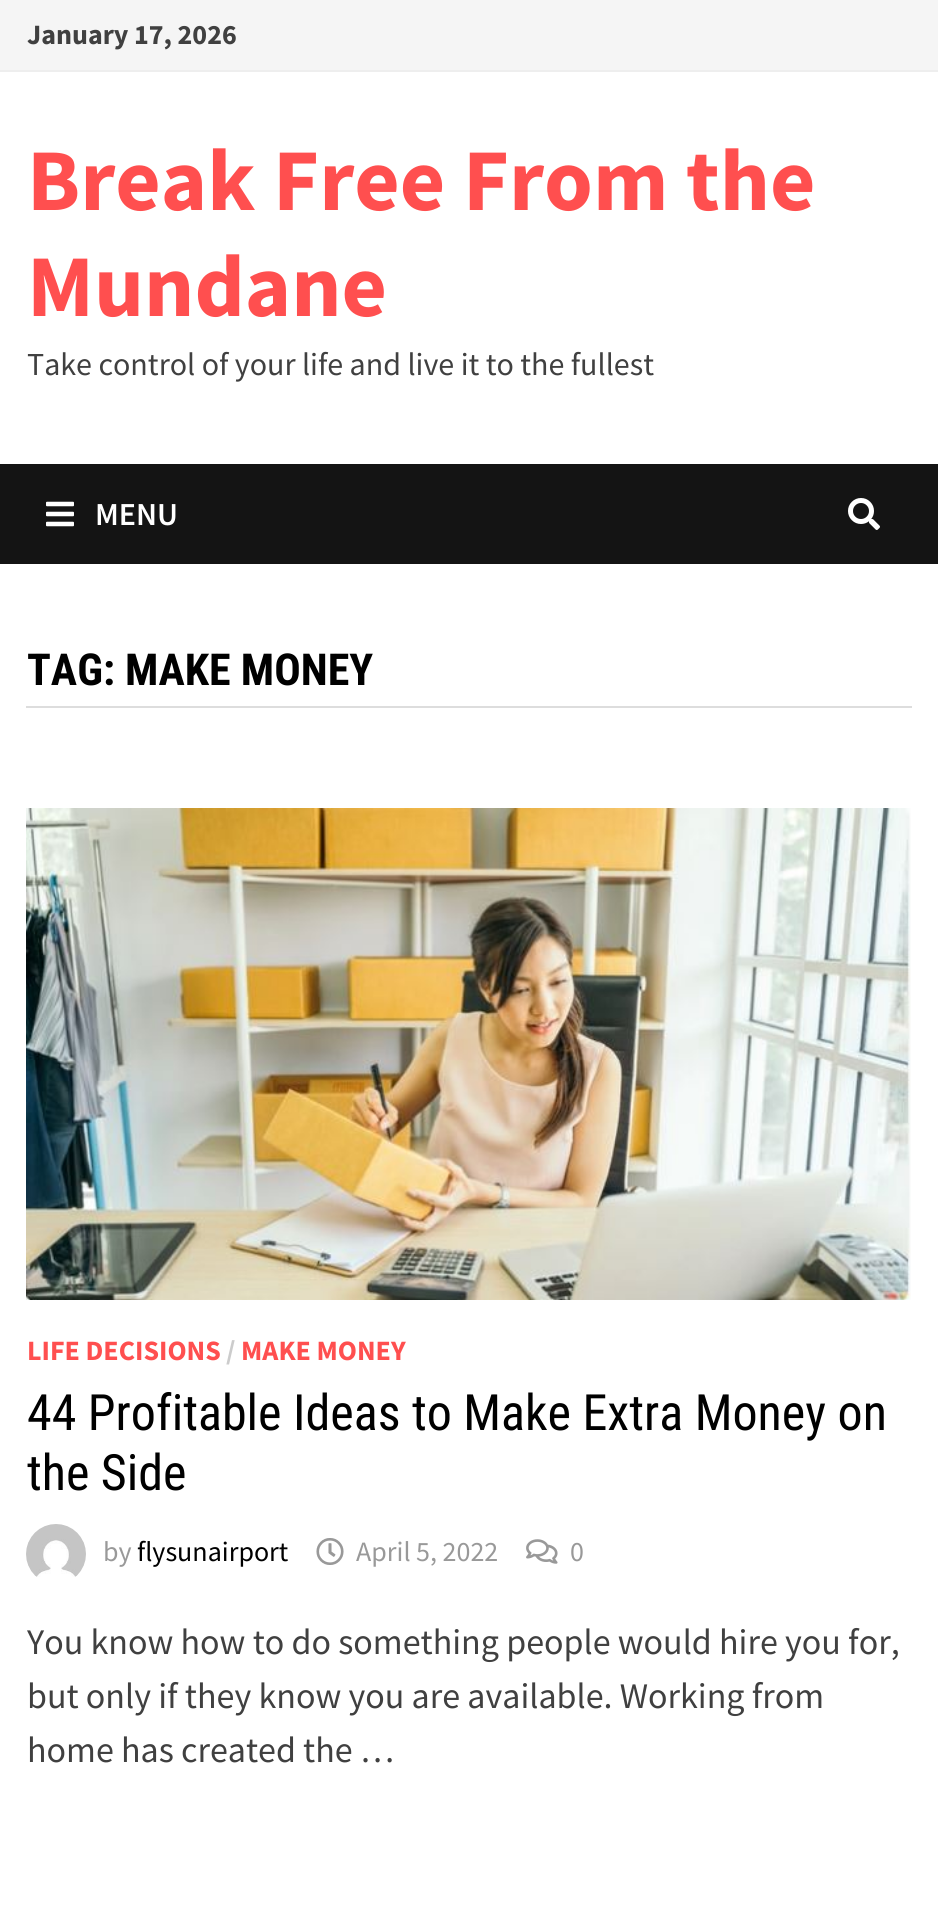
import math
import cairo


def use_color(cr, r, g, b):
  cr.set_source_rgb(r / 255, g / 255, b / 255)

def text(cr, x, y, s, family, size, color, bold=False, italic=False):
  cr.select_font_face(family, cairo.FONT_SLANT_ITALIC if italic else cairo.FONT_SLANT_NORMAL, cairo.FONT_WEIGHT_BOLD if bold else cairo.FONT_WEIGHT_NORMAL)
  cr.set_font_size(size)
  use_color(cr, *color)
  cr.move_to(x, y)
  cr.show_text(s)

def box(cr, x, y, w, h, *color):
  use_color(cr, *color)
  cr.rectangle(x, y, w, h)
  cr.fill()

def picture(cr, path, x, y, w, h):
  cr.save()
  cr.set_source_surface(cairo.ImageSurface.create_from_png(path), x, y)
  cr.rectangle(x, y, w, h)
  cr.fill()
  cr.restore()

def draw(cr):
  use_color(cr, 255, 255, 255)
  cr.paint()
  box(cr, 0, 0, 938, 70, 245, 245, 245)
  box(cr, 0, 70, 938, 2, 238, 238, 238)
  box(cr, 0, 464, 938, 100, 20, 20, 20)
  picture(cr, "img_01.png", 46, 501, 28, 26)
  picture(cr, "img_02.png", 848, 498, 32, 32)
  box(cr, 26, 706, 886, 2, 221, 221, 221)
  picture(cr, "img_03.png", 26, 808, 885, 492)
  picture(cr, "img_04.png", 26, 1524, 60, 53)
  picture(cr, "img_05.png", 316, 1538, 28, 27)
  picture(cr, "img_06.png", 526, 1539, 32, 25)
  text(cr, 27, 44, "January 17, 2026", "Source Sans Pro", 28, (64, 64, 64), bold=True)
  text(cr, 27, 210, "Break Free From the", "Source Sans Pro", 88, (255, 79, 79), bold=True)
  text(cr, 27, 316, "Mundane", "Source Sans Pro", 88, (255, 79, 79), bold=True)
  text(cr, 27, 375, "Take control of your life and live it to the fullest", "Source Sans Pro", 32, (64, 64, 64))
  text(cr, 95, 525, "MENU", "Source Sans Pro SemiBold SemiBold", 32, (255, 255, 255))
  text(cr, 27, 685, "TAG: MAKE MONEY", "Roboto Condensed", 44, (0, 0, 0), bold=True)
  text(cr, 27, 1360, "LIFE DECISIONS", "Source Sans Pro", 28, (255, 79, 79), bold=True)
  text(cr, 226, 1360, "/", "Source Sans Pro", 28, (204, 204, 204), bold=True)
  text(cr, 241, 1360, "MAKE MONEY", "Source Sans Pro", 28, (255, 79, 79), bold=True)
  text(cr, 27, 1430, "44 Profitable Ideas to Make Extra Money on", "Roboto Condensed", 50, (0, 0, 0))
  text(cr, 27, 1490, "the Side", "Roboto Condensed", 50, (0, 0, 0))
  text(cr, 103, 1561, "by", "Source Sans Pro", 28, (153, 153, 153))
  text(cr, 137, 1561, "flysunairport", "Source Sans Pro", 28, (0, 0, 0))
  text(cr, 356, 1561, "April 5, 2022", "Source Sans Pro", 28, (153, 153, 153))
  text(cr, 570, 1561, "0", "Source Sans Pro", 28, (153, 153, 153))
  text(cr, 27, 1654, "You know how to do something people would hire you for,", "Source Sans Pro", 36, (64, 64, 64))
  text(cr, 27, 1708, "but only if they know you are available. Working from", "Source Sans Pro", 36, (64, 64, 64))
  text(cr, 27, 1762, "home has created the …", "Source Sans Pro", 36, (64, 64, 64))


surface = cairo.ImageSurface(cairo.FORMAT_RGB24, 938, 1924)
cr = cairo.Context(surface)
options = cairo.FontOptions()
options.set_hint_metrics(cairo.HINT_METRICS_OFF)
options.set_hint_style(cairo.HINT_STYLE_NONE)
cr.set_font_options(options)
cr.set_miter_limit(4)
draw(cr)
surface.write_to_png("out.png")
